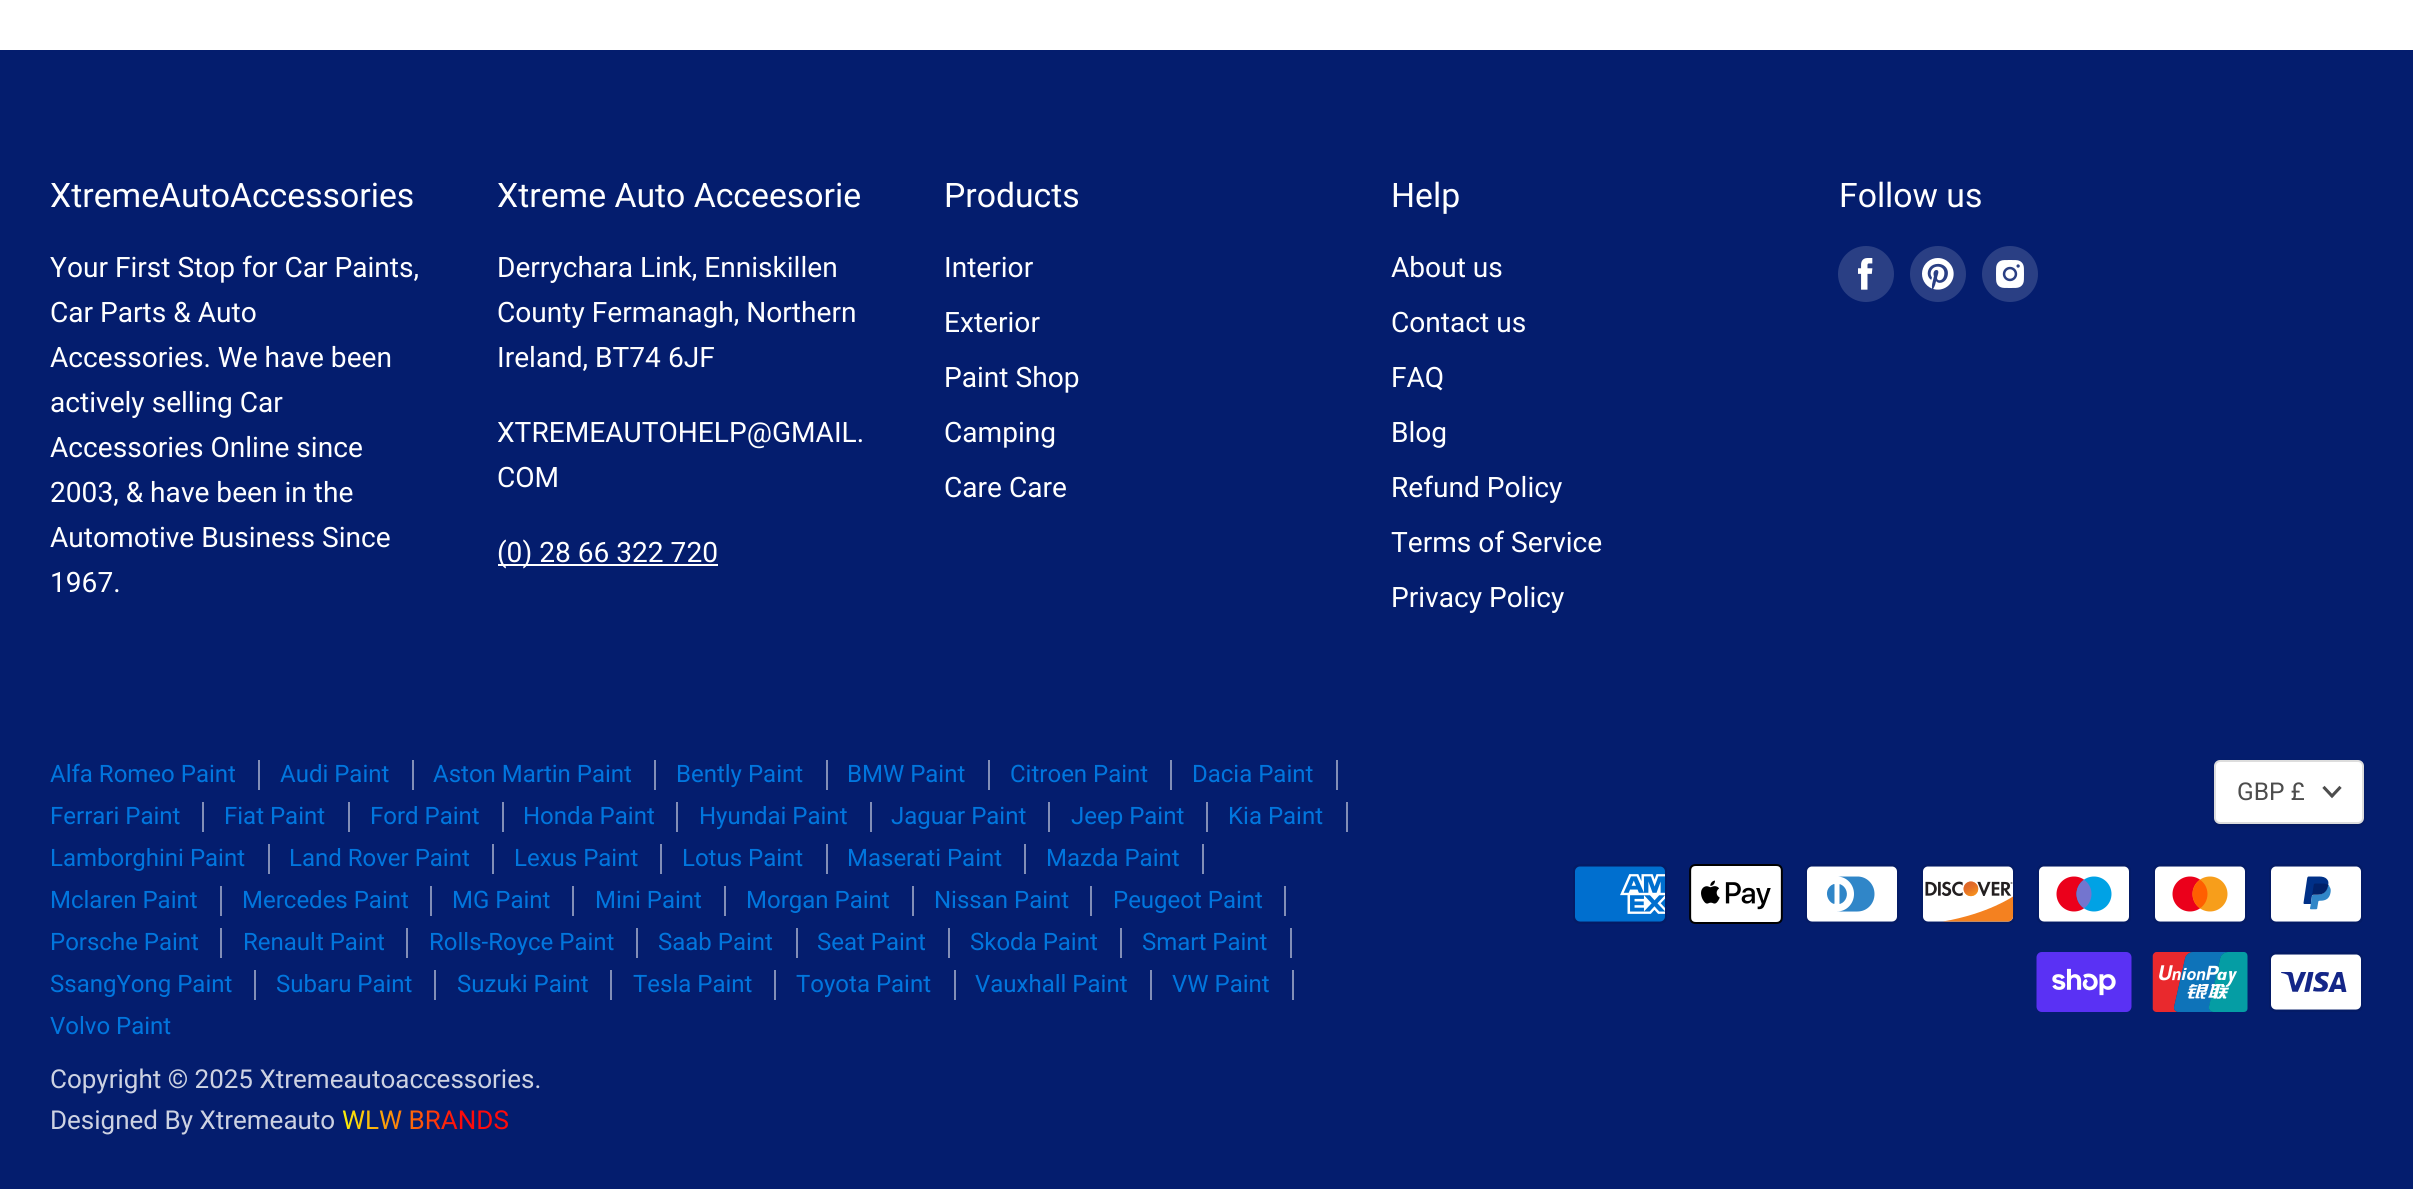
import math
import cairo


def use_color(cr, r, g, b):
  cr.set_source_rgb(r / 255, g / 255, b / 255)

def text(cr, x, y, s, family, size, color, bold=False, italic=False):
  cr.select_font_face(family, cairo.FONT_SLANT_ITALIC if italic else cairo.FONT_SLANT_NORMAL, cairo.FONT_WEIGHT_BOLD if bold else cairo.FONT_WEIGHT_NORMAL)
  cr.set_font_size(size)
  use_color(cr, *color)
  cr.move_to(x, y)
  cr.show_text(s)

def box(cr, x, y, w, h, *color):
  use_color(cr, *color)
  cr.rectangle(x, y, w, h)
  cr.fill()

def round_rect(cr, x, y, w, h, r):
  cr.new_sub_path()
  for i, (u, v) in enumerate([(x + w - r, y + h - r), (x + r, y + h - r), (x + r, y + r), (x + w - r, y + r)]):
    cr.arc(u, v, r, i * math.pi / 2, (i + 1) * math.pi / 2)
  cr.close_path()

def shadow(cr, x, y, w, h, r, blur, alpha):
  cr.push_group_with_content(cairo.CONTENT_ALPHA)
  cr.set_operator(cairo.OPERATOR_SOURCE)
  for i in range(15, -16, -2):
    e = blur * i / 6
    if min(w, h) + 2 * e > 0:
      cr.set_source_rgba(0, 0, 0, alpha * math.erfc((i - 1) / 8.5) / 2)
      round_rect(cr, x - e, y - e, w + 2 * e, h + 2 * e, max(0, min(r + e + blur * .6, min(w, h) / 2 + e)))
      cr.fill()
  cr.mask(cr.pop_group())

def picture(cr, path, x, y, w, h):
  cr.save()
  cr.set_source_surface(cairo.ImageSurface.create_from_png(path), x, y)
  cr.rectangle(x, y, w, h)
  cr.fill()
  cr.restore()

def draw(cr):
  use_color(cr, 255, 255, 255)
  cr.paint()
  box(cr, 0, 50, 2413, 1139, 4, 29, 110)
  box(cr, 498, 564, 220, 2, 255, 255, 255)
  use_color(cr, 42, 63, 132)
  cr.arc(1866, 274, 28, 0, 2 * math.pi)
  cr.fill()
  picture(cr, "img_01.png", 1858, 258, 15, 32)
  cr.arc(1938, 274, 28, 0, 2 * math.pi)
  cr.fill()
  picture(cr, "img_02.png", 1922, 258, 32, 32)
  cr.arc(2010, 274, 28, 0, 2 * math.pi)
  cr.fill()
  picture(cr, "img_03.png", 1996, 260, 28, 28)
  box(cr, 258, 760, 2, 30, 130, 142, 183)
  box(cr, 412, 760, 2, 30, 130, 142, 183)
  box(cr, 654, 760, 2, 30, 130, 142, 183)
  box(cr, 826, 760, 2, 30, 130, 142, 183)
  box(cr, 988, 760, 2, 30, 130, 142, 183)
  box(cr, 1170, 760, 2, 30, 130, 142, 183)
  box(cr, 1336, 760, 2, 30, 130, 142, 183)
  box(cr, 202, 802, 2, 30, 130, 142, 183)
  box(cr, 348, 802, 2, 30, 130, 142, 183)
  box(cr, 502, 802, 2, 30, 130, 142, 183)
  box(cr, 676, 802, 2, 30, 130, 142, 183)
  box(cr, 870, 802, 2, 30, 130, 142, 183)
  box(cr, 1048, 802, 2, 30, 130, 142, 183)
  box(cr, 1206, 802, 2, 30, 130, 142, 183)
  box(cr, 1346, 802, 2, 30, 130, 142, 183)
  box(cr, 268, 844, 2, 30, 130, 142, 183)
  box(cr, 492, 844, 2, 30, 130, 142, 183)
  box(cr, 660, 844, 2, 30, 130, 142, 183)
  box(cr, 826, 844, 2, 30, 130, 142, 183)
  box(cr, 1024, 844, 2, 30, 130, 142, 183)
  box(cr, 1202, 844, 2, 30, 130, 142, 183)
  box(cr, 220, 886, 2, 30, 130, 142, 183)
  box(cr, 430, 886, 2, 30, 130, 142, 183)
  box(cr, 572, 886, 2, 30, 130, 142, 183)
  box(cr, 724, 886, 2, 30, 130, 142, 183)
  box(cr, 912, 886, 2, 30, 130, 142, 183)
  box(cr, 1090, 886, 2, 30, 130, 142, 183)
  box(cr, 1284, 886, 2, 30, 130, 142, 183)
  box(cr, 220, 928, 2, 30, 130, 142, 183)
  box(cr, 406, 928, 2, 30, 130, 142, 183)
  box(cr, 636, 928, 2, 30, 130, 142, 183)
  box(cr, 796, 928, 2, 30, 130, 142, 183)
  box(cr, 948, 928, 2, 30, 130, 142, 183)
  box(cr, 1120, 928, 2, 30, 130, 142, 183)
  box(cr, 1290, 928, 2, 30, 130, 142, 183)
  box(cr, 254, 970, 2, 30, 130, 142, 183)
  box(cr, 434, 970, 2, 30, 130, 142, 183)
  box(cr, 610, 970, 2, 30, 130, 142, 183)
  box(cr, 774, 970, 2, 30, 130, 142, 183)
  box(cr, 954, 970, 2, 30, 130, 142, 183)
  box(cr, 1150, 970, 2, 30, 130, 142, 183)
  box(cr, 1292, 970, 2, 30, 130, 142, 183)
  use_color(cr, 0, 0, 0)
  shadow(cr, 2214, 762, 150, 64, 6, 2, 0.15)
  use_color(cr, 255, 255, 255)
  round_rect(cr, 2215, 761, 148, 62, 5)
  cr.fill_preserve()
  use_color(cr, 221, 221, 221)
  cr.stroke()
  cr.new_path()
  cr.move_to(2332, 796)
  cr.line_to(2339.5, 788)
  cr.move_to(2332, 796)
  cr.line_to(2324.5, 788)
  use_color(cr, 77, 77, 77)
  cr.set_line_width(3.1)
  cr.set_line_cap(cairo.LINE_CAP_SQUARE)
  cr.stroke()
  picture(cr, "img_04.png", 1573, 864, 94, 60)
  picture(cr, "img_05.png", 1689, 864, 94, 60)
  picture(cr, "img_06.png", 1805, 864, 94, 60)
  picture(cr, "img_07.png", 1921, 864, 94, 60)
  picture(cr, "img_08.png", 2037, 864, 94, 60)
  picture(cr, "img_09.png", 2153, 864, 94, 60)
  picture(cr, "img_10.png", 2269, 864, 94, 60)
  picture(cr, "img_11.png", 2036, 952, 96, 60)
  picture(cr, "img_12.png", 2152, 952, 96, 60)
  picture(cr, "img_13.png", 2269, 952, 94, 60)
  text(cr, 50, 207, "XtremeAutoAccessories", "Roboto", 33.75, (255, 255, 255))
  text(cr, 50, 277, "Your First Stop for Car Paints,", "Roboto", 28.1, (255, 255, 255))
  text(cr, 50, 322, "Car Parts & Auto", "Roboto", 28.1, (255, 255, 255))
  text(cr, 50, 367, "Accessories. We have been", "Roboto", 28.1, (255, 255, 255))
  text(cr, 50, 412, "actively selling Car", "Roboto", 28.1, (255, 255, 255))
  text(cr, 50, 457, "Accessories Online since", "Roboto", 28.1, (255, 255, 255))
  text(cr, 50, 502, "2003, & have been in the", "Roboto", 28.1, (255, 255, 255))
  text(cr, 50, 547, "Automotive Business Since", "Roboto", 28.1, (255, 255, 255))
  text(cr, 50, 592, "1967.", "Roboto", 28.1, (255, 255, 255))
  text(cr, 497, 207, "Xtreme Auto Acceesorie", "Roboto", 33.75, (255, 255, 255))
  text(cr, 497, 277, "Derrychara Link, Enniskillen", "Roboto", 28.1, (255, 255, 255))
  text(cr, 497, 322, "County Fermanagh, Northern", "Roboto", 28.1, (255, 255, 255))
  text(cr, 497, 367, "Ireland, BT74 6JF", "Roboto", 28.1, (255, 255, 255))
  text(cr, 497, 442, "XTREMEAUTOHELP@GMAIL.", "Roboto", 28.1, (255, 255, 255))
  text(cr, 497, 487, "COM", "Roboto", 28.1, (255, 255, 255))
  text(cr, 497, 562, "(0) 28 66 322 720", "Roboto", 28.1, (255, 255, 255))
  text(cr, 944, 207, "Products", "Roboto", 33.75, (255, 255, 255))
  text(cr, 944, 277, "Interior", "Roboto", 28.1, (255, 255, 255))
  text(cr, 944, 332, "Exterior", "Roboto", 28.1, (255, 255, 255))
  text(cr, 944, 387, "Paint Shop", "Roboto", 28.1, (255, 255, 255))
  text(cr, 944, 442, "Camping", "Roboto", 28.1, (255, 255, 255))
  text(cr, 944, 497, "Care Care", "Roboto", 28.1, (255, 255, 255))
  text(cr, 1391, 207, "Help", "Roboto", 33.75, (255, 255, 255))
  text(cr, 1391, 277, "About us", "Roboto", 28.1, (255, 255, 255))
  text(cr, 1391, 332, "Contact us", "Roboto", 28.1, (255, 255, 255))
  text(cr, 1391, 387, "FAQ", "Roboto", 28.1, (255, 255, 255))
  text(cr, 1391, 442, "Blog", "Roboto", 28.1, (255, 255, 255))
  text(cr, 1391, 497, "Refund Policy", "Roboto", 28.1, (255, 255, 255))
  text(cr, 1391, 552, "Terms of Service", "Roboto", 28.1, (255, 255, 255))
  text(cr, 1391, 607, "Privacy Policy", "Roboto", 28.1, (255, 255, 255))
  text(cr, 1839, 207, "Follow us", "Roboto", 33.75, (255, 255, 255))
  text(cr, 50, 782, "Alfa Romeo Paint", "Roboto", 24, (1, 118, 222))
  text(cr, 280, 782, "Audi Paint", "Roboto", 24, (1, 118, 222))
  text(cr, 433, 782, "Aston Martin Paint", "Roboto", 24, (1, 118, 222))
  text(cr, 676, 782, "Bently Paint", "Roboto", 24, (1, 118, 222))
  text(cr, 847, 782, "BMW Paint", "Roboto", 24, (1, 118, 222))
  text(cr, 1010, 782, "Citroen Paint", "Roboto", 24, (1, 118, 222))
  text(cr, 1192, 782, "Dacia Paint", "Roboto", 24, (1, 118, 222))
  text(cr, 50, 824, "Ferrari Paint", "Roboto", 24, (1, 118, 222))
  text(cr, 224, 824, "Fiat Paint", "Roboto", 24, (1, 118, 222))
  text(cr, 370, 824, "Ford Paint", "Roboto", 24, (1, 118, 222))
  text(cr, 523, 824, "Honda Paint", "Roboto", 24, (1, 118, 222))
  text(cr, 699, 824, "Hyundai Paint", "Roboto", 24, (1, 118, 222))
  text(cr, 891, 824, "Jaguar Paint", "Roboto", 24, (1, 118, 222))
  text(cr, 1071, 824, "Jeep Paint", "Roboto", 24, (1, 118, 222))
  text(cr, 1228, 824, "Kia Paint", "Roboto", 24, (1, 118, 222))
  text(cr, 50, 866, "Lamborghini Paint", "Roboto", 24, (1, 118, 222))
  text(cr, 289, 866, "Land Rover Paint", "Roboto", 24, (1, 118, 222))
  text(cr, 514, 866, "Lexus Paint", "Roboto", 24, (1, 118, 222))
  text(cr, 682, 866, "Lotus Paint", "Roboto", 24, (1, 118, 222))
  text(cr, 847, 866, "Maserati Paint", "Roboto", 24, (1, 118, 222))
  text(cr, 1046, 866, "Mazda Paint", "Roboto", 24, (1, 118, 222))
  text(cr, 50, 908, "Mclaren Paint", "Roboto", 24, (1, 118, 222))
  text(cr, 242, 908, "Mercedes Paint", "Roboto", 24, (1, 118, 222))
  text(cr, 452, 908, "MG Paint", "Roboto", 24, (1, 118, 222))
  text(cr, 595, 908, "Mini Paint", "Roboto", 24, (1, 118, 222))
  text(cr, 746, 908, "Morgan Paint", "Roboto", 24, (1, 118, 222))
  text(cr, 934, 908, "Nissan Paint", "Roboto", 24, (1, 118, 222))
  text(cr, 1113, 908, "Peugeot Paint", "Roboto", 24, (1, 118, 222))
  text(cr, 50, 950, "Porsche Paint", "Roboto", 24, (1, 118, 222))
  text(cr, 243, 950, "Renault Paint", "Roboto", 24, (1, 118, 222))
  text(cr, 429, 950, "Rolls-Royce Paint", "Roboto", 24, (1, 118, 222))
  text(cr, 658, 950, "Saab Paint", "Roboto", 24, (1, 118, 222))
  text(cr, 817, 950, "Seat Paint", "Roboto", 24, (1, 118, 222))
  text(cr, 970, 950, "Skoda Paint", "Roboto", 24, (1, 118, 222))
  text(cr, 1142, 950, "Smart Paint", "Roboto", 24, (1, 118, 222))
  text(cr, 50, 992, "SsangYong Paint", "Roboto", 24, (1, 118, 222))
  text(cr, 276, 992, "Subaru Paint", "Roboto", 24, (1, 118, 222))
  text(cr, 457, 992, "Suzuki Paint", "Roboto", 24, (1, 118, 222))
  text(cr, 633, 992, "Tesla Paint", "Roboto", 24, (1, 118, 222))
  text(cr, 796, 992, "Toyota Paint", "Roboto", 24, (1, 118, 222))
  text(cr, 975, 992, "Vauxhall Paint", "Roboto", 24, (1, 118, 222))
  text(cr, 1172, 992, "VW Paint", "Roboto", 24, (1, 118, 222))
  text(cr, 50, 1034, "Volvo Paint", "Roboto", 24, (1, 118, 222))
  text(cr, 50, 1088, "Copyright © 2025 Xtremeautoaccessories.", "Roboto", 26, (205, 210, 226))
  text(cr, 50, 1129, "Designed By Xtremeauto", "Roboto", 26, (205, 210, 226))
  gradient = cairo.LinearGradient(342, 1120, 509, 1120)
  gradient.add_color_stop_rgba(0, 0.976, 0.949, 0.043, 1)
  gradient.add_color_stop_rgba(0.7, 1, 0.039, 0.039, 1)
  cr.set_source(gradient)
  cr.move_to(342, 1129)
  cr.show_text("WLW BRANDS")
  text(cr, 2237, 800, "GBP £", "Roboto", 24.5, (77, 77, 77))


surface = cairo.ImageSurface(cairo.FORMAT_RGB24, 2413, 1189)
cr = cairo.Context(surface)
options = cairo.FontOptions()
options.set_hint_metrics(cairo.HINT_METRICS_OFF)
options.set_hint_style(cairo.HINT_STYLE_NONE)
cr.set_font_options(options)
cr.set_miter_limit(4)
draw(cr)
surface.write_to_png("out.png")
